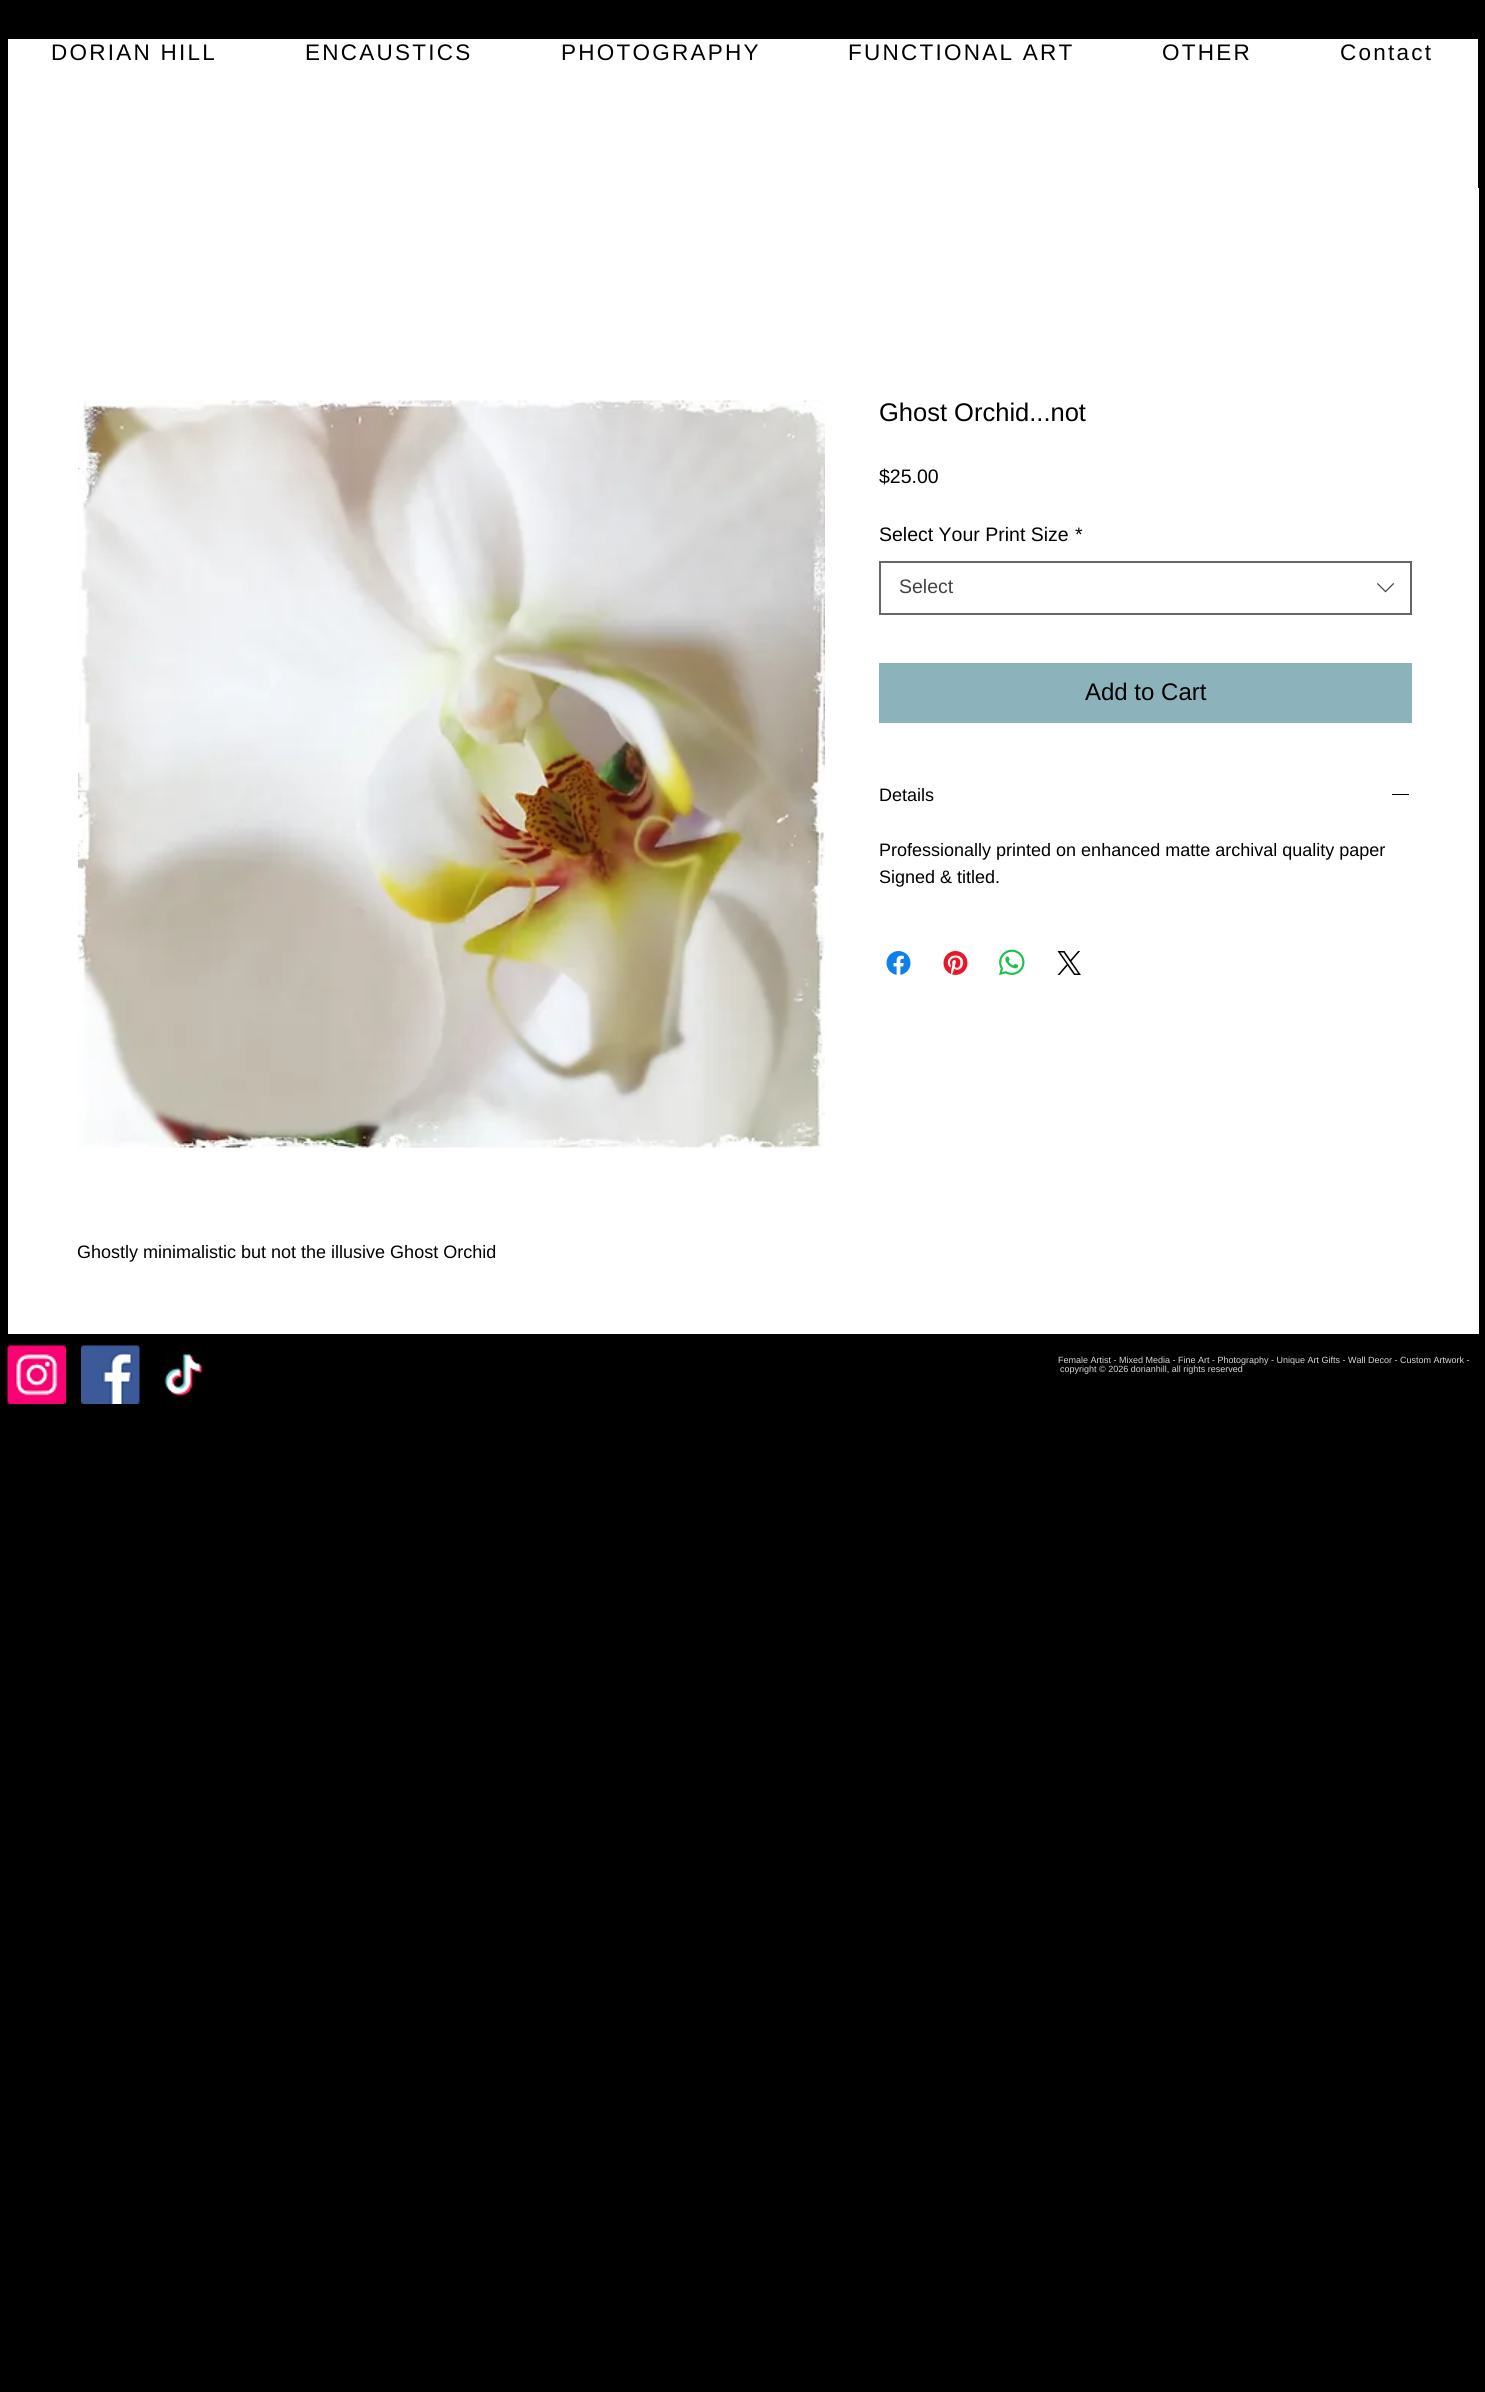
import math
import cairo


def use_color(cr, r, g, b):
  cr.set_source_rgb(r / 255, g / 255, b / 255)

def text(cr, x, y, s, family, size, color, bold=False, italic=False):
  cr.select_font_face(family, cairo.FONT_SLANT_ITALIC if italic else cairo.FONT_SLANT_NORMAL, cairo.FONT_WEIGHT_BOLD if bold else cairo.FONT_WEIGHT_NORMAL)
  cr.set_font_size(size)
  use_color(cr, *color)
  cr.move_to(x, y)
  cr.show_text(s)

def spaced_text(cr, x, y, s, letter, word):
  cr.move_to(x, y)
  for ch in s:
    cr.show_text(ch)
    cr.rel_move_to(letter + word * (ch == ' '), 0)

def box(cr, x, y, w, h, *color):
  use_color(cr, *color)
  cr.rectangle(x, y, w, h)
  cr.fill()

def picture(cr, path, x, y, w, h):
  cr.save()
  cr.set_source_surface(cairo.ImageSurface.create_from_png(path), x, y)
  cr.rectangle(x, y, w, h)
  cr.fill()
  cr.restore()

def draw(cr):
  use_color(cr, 0, 0, 0)
  cr.paint()
  box(cr, 8, 39, 1470, 1295, 255, 255, 255)
  box(cr, 1478, 188, 1, 1146, 255, 255, 255)
  cr.rectangle(880, 562, 531, 52)
  use_color(cr, 102, 102, 102)
  cr.stroke()
  picture(cr, "img_01.png", 1377, 583, 17, 10)
  box(cr, 879, 663, 533, 60, 140, 179, 187)
  box(cr, 1392, 794, 17, 1, 0, 0, 0)
  picture(cr, "img_02.png", 886, 951, 25, 24)
  picture(cr, "img_03.png", 943, 951, 25, 24)
  picture(cr, "img_04.png", 999, 949, 26, 27)
  picture(cr, "img_05.png", 1057, 951, 24, 24)
  picture(cr, "img_06.png", 78, 400, 747, 748)
  picture(cr, "img_07.png", 7, 1345, 59, 59)
  picture(cr, "img_08.png", 81, 1345, 59, 59)
  picture(cr, "img_09.png", 164, 1354, 39, 43)
  cr.select_font_face("Liberation Sans")
  cr.set_font_size(22.5)
  spaced_text(cr, 51, 60, "DORIAN HILL", 2.25, 0)
  spaced_text(cr, 305, 60, "ENCAUSTICS", 2.25, 0)
  spaced_text(cr, 561, 60, "PHOTOGRAPHY", 2.25, 0)
  spaced_text(cr, 848, 60, "FUNCTIONAL ART", 2.25, 0)
  spaced_text(cr, 1162, 60, "OTHER", 2.25, 0)
  spaced_text(cr, 1340, 60, "Contact", 2.25, 0)
  text(cr, 879, 421, "Ghost Orchid...not", "Liberation Sans", 25.5, (0, 0, 0))
  text(cr, 879, 483, "$25.00", "Liberation Sans", 19.5, (0, 0, 0))
  text(cr, 879, 541, "Select Your Print Size", "Liberation Sans", 19.5, (0, 0, 0))
  text(cr, 1075, 541, "*", "Liberation Sans", 19.5, (0, 0, 0))
  text(cr, 899, 593, "Select", "Liberation Sans", 19.5, (68, 68, 68))
  text(cr, 1085, 700, "Add to Cart", "Liberation Sans", 24, (0, 0, 0))
  text(cr, 879, 801, "Details", "Liberation Sans", 18, (0, 0, 0))
  text(cr, 879, 856, "Professionally printed on enhanced matte archival quality paper", "Liberation Sans", 18, (0, 0, 0))
  text(cr, 879, 883, "Signed & titled.", "Liberation Sans", 18, (0, 0, 0))
  text(cr, 77, 1258, "Ghostly minimalistic but not the illusive Ghost Orchid", "Liberation Sans", 18, (0, 0, 0))
  text(cr, 1058, 1363, "Female Artist - Mixed Media - Fine Art - Photography - Unique Art Gifts - Wall Decor - Custom Artwork -", "Liberation Sans", 9, (216, 216, 216))
  text(cr, 1060, 1372, "copyright © 2026 dorianhill, all rights reserved", "Liberation Sans", 9, (216, 216, 216))


surface = cairo.ImageSurface(cairo.FORMAT_RGB24, 1485, 2392)
cr = cairo.Context(surface)
options = cairo.FontOptions()
options.set_hint_metrics(cairo.HINT_METRICS_OFF)
options.set_hint_style(cairo.HINT_STYLE_NONE)
cr.set_font_options(options)
cr.set_miter_limit(4)
draw(cr)
surface.write_to_png("out.png")
